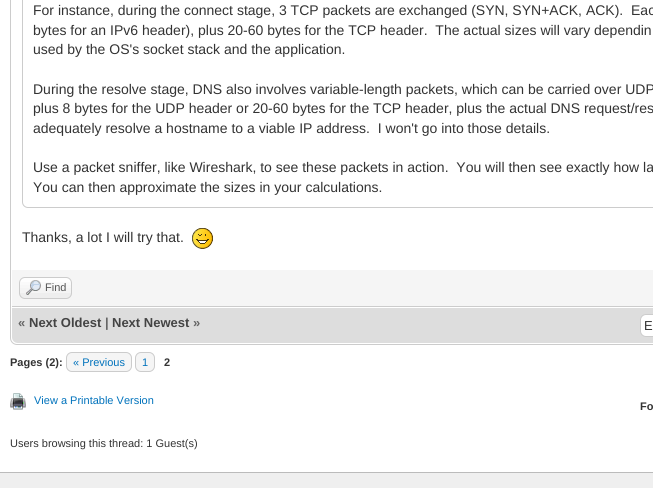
import math
import cairo


def use_color(cr, r, g, b):
  cr.set_source_rgb(r / 255, g / 255, b / 255)

def text(cr, x, y, s, family, size, color, bold=False, italic=False):
  cr.select_font_face(family, cairo.FONT_SLANT_ITALIC if italic else cairo.FONT_SLANT_NORMAL, cairo.FONT_WEIGHT_BOLD if bold else cairo.FONT_WEIGHT_NORMAL)
  cr.set_font_size(size)
  use_color(cr, *color)
  cr.move_to(x, y)
  cr.show_text(s)

def box(cr, x, y, w, h, *color):
  use_color(cr, *color)
  cr.rectangle(x, y, w, h)
  cr.fill()

def round_rect(cr, x, y, w, h, r):
  cr.new_sub_path()
  for i, (u, v) in enumerate([(x + w - r, y + h - r), (x + r, y + h - r), (x + r, y + r), (x + w - r, y + r)]):
    cr.arc(u, v, r, i * math.pi / 2, (i + 1) * math.pi / 2)
  cr.close_path()

def picture(cr, path, x, y, w, h):
  cr.save()
  cr.set_source_surface(cairo.ImageSurface.create_from_png(path), x, y)
  cr.rectangle(x, y, w, h)
  cr.fill()
  cr.restore()

def draw(cr):
  use_color(cr, 255, 255, 255)
  cr.paint()
  round_rect(cr, 10.5, -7.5, 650, 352, 6.5)
  use_color(cr, 204, 204, 204)
  cr.set_line_width(1)
  cr.stroke()
  round_rect(cr, 22.5, -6.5, 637, 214, 5.5)
  cr.stroke()
  picture(cr, "img_01.png", 192, 228, 21, 21)
  box(cr, 12, 270, 641, 36, 245, 245, 245)
  box(cr, 12, 306, 641, 1, 204, 204, 204)
  use_color(cr, 238, 238, 238)
  round_rect(cr, 19, 277, 53, 22, 6)
  cr.fill()
  picture(cr, "img_02.png", 19, 278, 53, 15)
  round_rect(cr, 19.5, 277.5, 52, 21, 5.5)
  use_color(cr, 204, 204, 204)
  cr.stroke()
  picture(cr, "img_03.png", 26, 280, 15, 15)
  use_color(cr, 221, 221, 221)
  cr.new_path()
  cr.move_to(12, 307)
  cr.line_to(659, 307)
  cr.line_to(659, 337)
  cr.curve_to(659, 340.5, 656.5, 343, 653, 343)
  cr.line_to(18, 343)
  cr.curve_to(14.5, 343, 12, 340.5, 12, 337)
  cr.close_path()
  cr.fill()
  box(cr, 12, 307, 641, 1, 255, 255, 255)
  round_rect(cr, 640.5, 314.5, 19, 22, 5.5)
  cr.fill_preserve()
  use_color(cr, 204, 204, 204)
  cr.stroke()
  use_color(cr, 245, 245, 245)
  round_rect(cr, 66.5, 352.5, 65, 19, 5.5)
  cr.fill_preserve()
  use_color(cr, 204, 204, 204)
  cr.stroke()
  use_color(cr, 245, 245, 245)
  round_rect(cr, 135.5, 352.5, 19, 19, 5.5)
  cr.fill_preserve()
  use_color(cr, 204, 204, 204)
  cr.stroke()
  picture(cr, "img_04.png", 10, 393, 16, 17)
  box(cr, 0, 473, 653, 15, 239, 239, 239)
  box(cr, 0, 472, 653, 1, 187, 187, 187)
  text(cr, 33, 15, "For instance, during the connect stage, 3 TCP packets are exchanged (SYN, SYN+ACK, ACK).  Eac", "Liberation Sans", 14, (51, 51, 51))
  text(cr, 33, 35, "bytes for an IPv6 header), plus 20-60 bytes for the TCP header.  The actual sizes will vary dependin", "Liberation Sans", 14, (51, 51, 51))
  text(cr, 33, 54, "used by the OS's socket stack and the application.", "Liberation Sans", 14, (51, 51, 51))
  text(cr, 33, 94, "During the resolve stage, DNS also involves variable-length packets, which can be carried over UDP", "Liberation Sans", 14, (51, 51, 51))
  text(cr, 33, 113, "plus 8 bytes for the UDP header or 20-60 bytes for the TCP header, plus the actual DNS request/res", "Liberation Sans", 14, (51, 51, 51))
  text(cr, 33, 133, "adequately resolve a hostname to a viable IP address.  I won't go into those details.", "Liberation Sans", 14, (51, 51, 51))
  text(cr, 33, 172, "Use a packet sniffer, like Wireshark, to see these packets in action.  You will then see exactly how la", "Liberation Sans", 14, (51, 51, 51))
  text(cr, 33, 192, "You can then approximate the sizes in your calculations.", "Liberation Sans", 14, (51, 51, 51))
  text(cr, 22, 242, "Thanks, a lot I will try that.", "Liberation Sans", 14, (51, 51, 51))
  text(cr, 45, 291, "Find", "Liberation Sans", 11, (85, 85, 85))
  text(cr, 18, 327, "«", "Liberation Sans", 13, (102, 102, 102), bold=True)
  text(cr, 29, 327, "Next Oldest", "Liberation Sans", 13, (68, 68, 68), bold=True)
  text(cr, 105, 327, "|", "Liberation Sans", 13, (102, 102, 102), bold=True)
  text(cr, 112, 327, "Next Newest", "Liberation Sans", 13, (68, 68, 68), bold=True)
  text(cr, 193, 327, "»", "Liberation Sans", 13, (102, 102, 102), bold=True)
  text(cr, 644, 330, "E", "Liberation Sans", 13, (51, 51, 51))
  text(cr, 10, 366, "Pages (2):", "Liberation Sans", 11, (51, 51, 51), bold=True)
  text(cr, 73, 366, "« Previous", "Liberation Sans", 11, (0, 114, 188))
  text(cr, 142, 366, "1", "Liberation Sans", 11, (0, 114, 188))
  text(cr, 164, 366, "2", "Liberation Sans", 11, (51, 51, 51), bold=True)
  text(cr, 34, 404, "View a Printable Version", "Liberation Sans", 11, (0, 114, 188))
  text(cr, 640, 410, "Fo", "Liberation Sans", 11, (51, 51, 51), bold=True)
  text(cr, 10, 447, "Users browsing this thread: 1 Guest(s)", "Liberation Sans", 11, (51, 51, 51))


surface = cairo.ImageSurface(cairo.FORMAT_RGB24, 653, 488)
cr = cairo.Context(surface)
options = cairo.FontOptions()
options.set_hint_metrics(cairo.HINT_METRICS_OFF)
options.set_hint_style(cairo.HINT_STYLE_NONE)
cr.set_font_options(options)
cr.set_miter_limit(4)
draw(cr)
surface.write_to_png("out.png")
